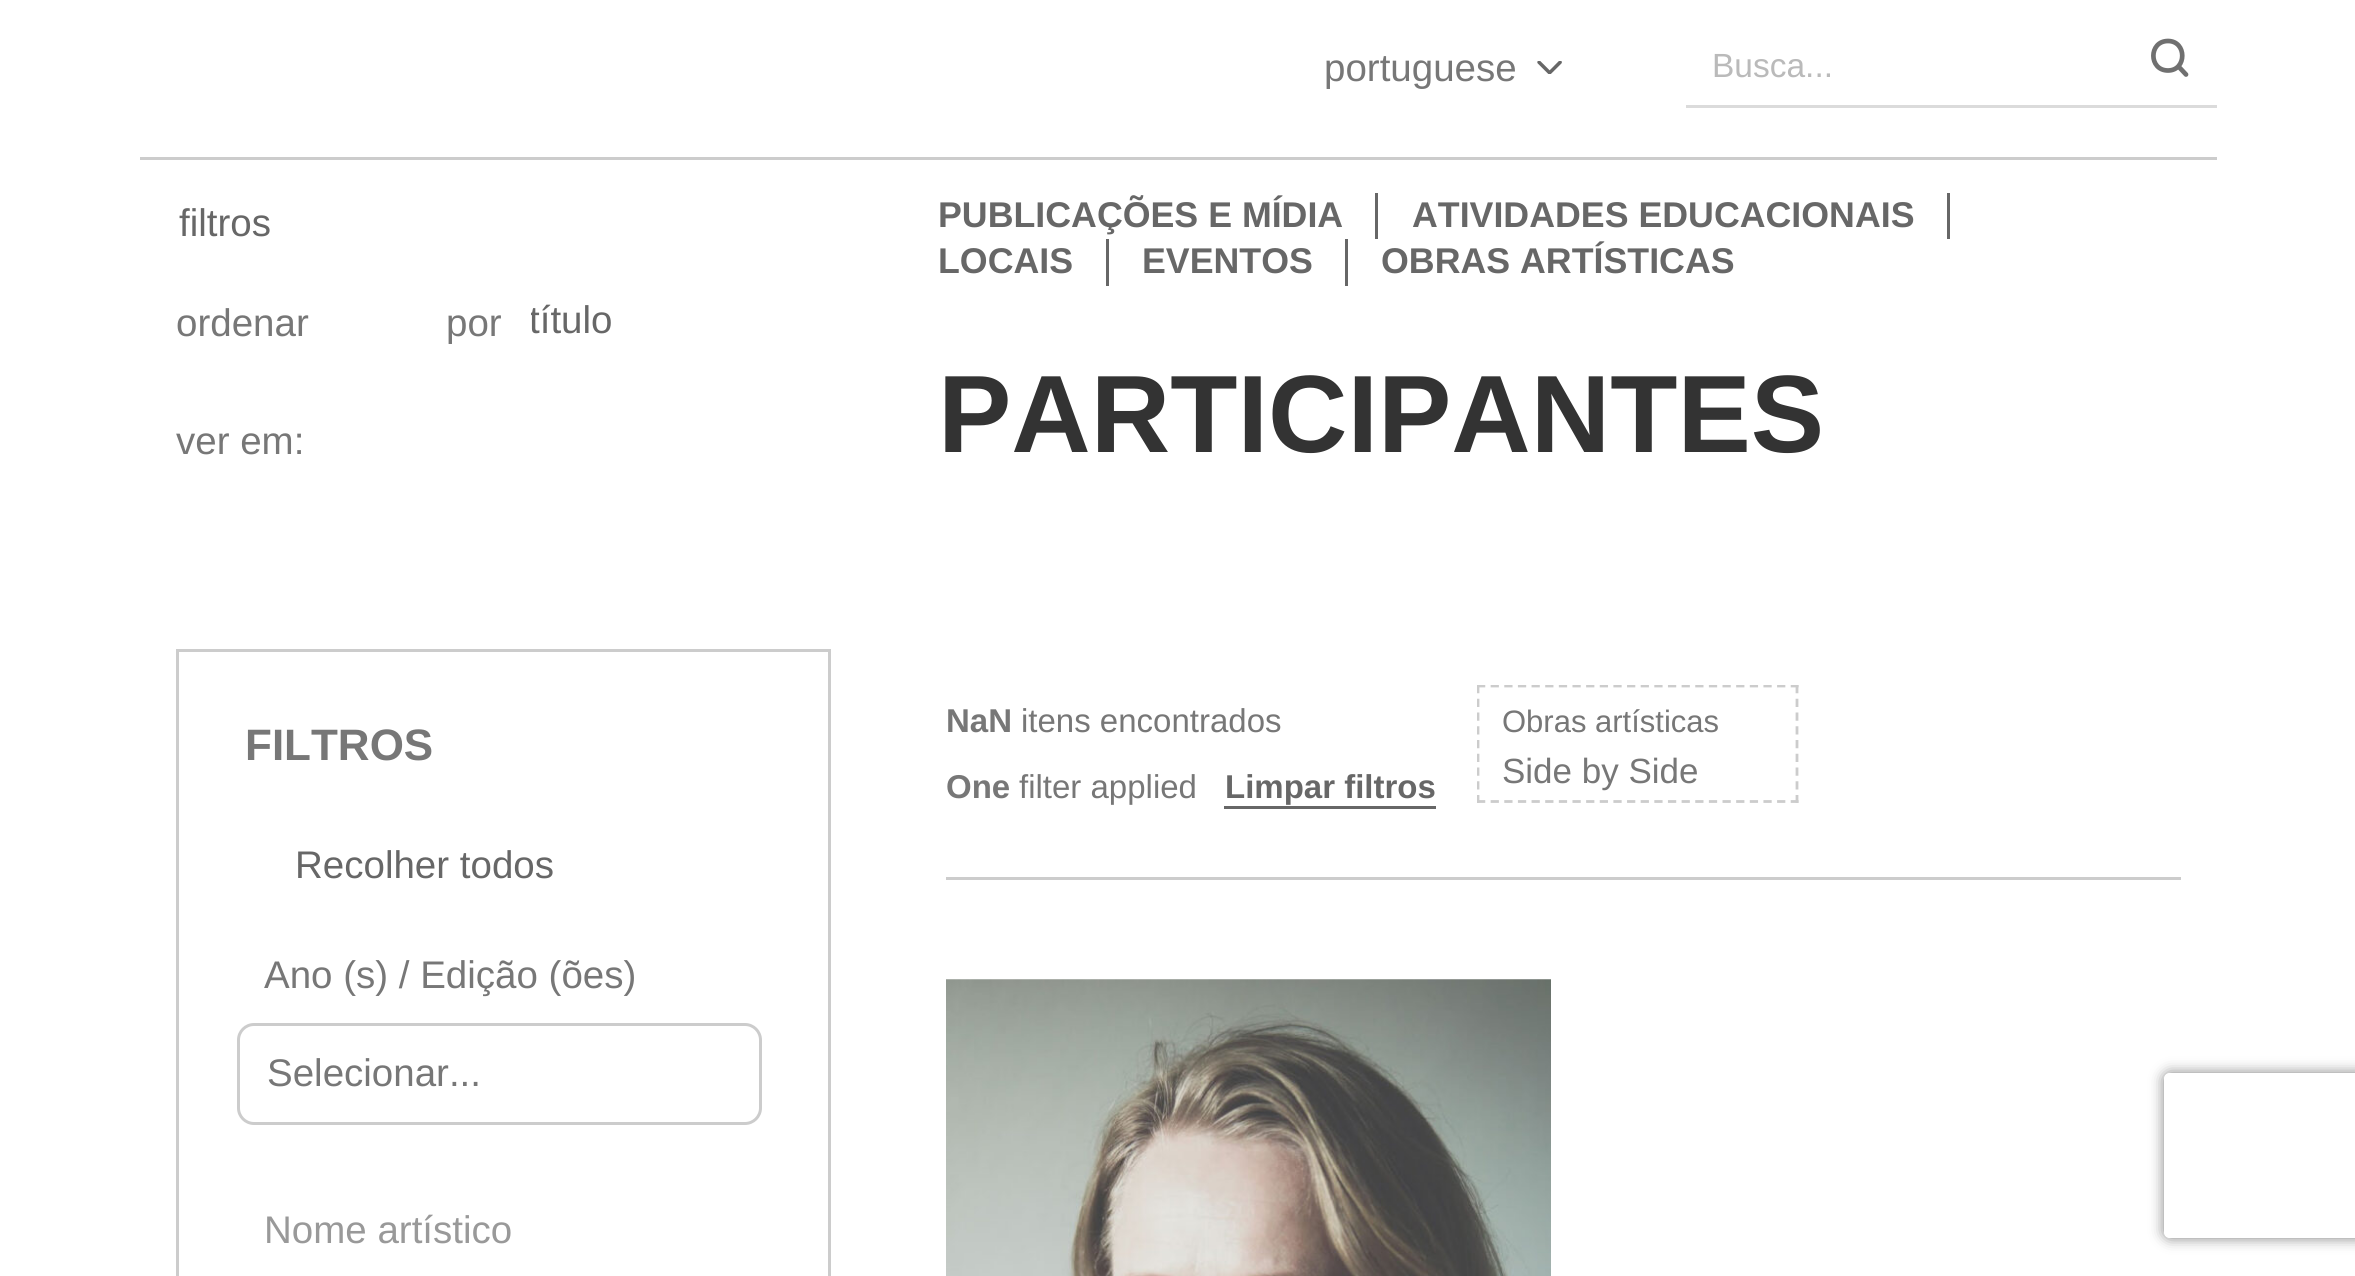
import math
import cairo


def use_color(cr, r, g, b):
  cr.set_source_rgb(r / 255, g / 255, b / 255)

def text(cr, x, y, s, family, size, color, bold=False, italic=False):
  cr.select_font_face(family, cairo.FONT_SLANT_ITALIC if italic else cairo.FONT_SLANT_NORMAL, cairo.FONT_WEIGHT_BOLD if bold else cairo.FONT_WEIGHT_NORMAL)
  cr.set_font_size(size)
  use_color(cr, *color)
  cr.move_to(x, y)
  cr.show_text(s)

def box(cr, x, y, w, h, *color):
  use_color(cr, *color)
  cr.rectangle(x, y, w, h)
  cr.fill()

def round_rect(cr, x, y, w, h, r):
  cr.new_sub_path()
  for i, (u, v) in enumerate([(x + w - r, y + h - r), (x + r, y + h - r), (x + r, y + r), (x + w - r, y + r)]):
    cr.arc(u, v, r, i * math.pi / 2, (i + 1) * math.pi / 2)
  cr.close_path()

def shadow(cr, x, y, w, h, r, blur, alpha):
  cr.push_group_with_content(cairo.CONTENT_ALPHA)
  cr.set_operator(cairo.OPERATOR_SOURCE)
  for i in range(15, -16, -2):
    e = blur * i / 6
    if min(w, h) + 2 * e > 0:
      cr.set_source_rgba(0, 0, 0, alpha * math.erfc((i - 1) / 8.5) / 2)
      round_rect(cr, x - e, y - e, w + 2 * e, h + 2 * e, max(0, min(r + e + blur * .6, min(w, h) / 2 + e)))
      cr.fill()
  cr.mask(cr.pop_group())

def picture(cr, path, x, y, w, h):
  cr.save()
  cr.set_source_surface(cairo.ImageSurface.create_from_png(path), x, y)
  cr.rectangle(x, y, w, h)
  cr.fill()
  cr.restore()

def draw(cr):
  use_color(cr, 255, 255, 255)
  cr.paint()
  box(cr, 140, 157, 2077, 3, 204, 204, 204)
  picture(cr, "img_01.png", 1537, 61, 25, 13)
  box(cr, 1686, 105, 531, 3, 219, 219, 219)
  cr.new_path()
  cr.move_to(2168, 70.5)
  cr.curve_to(2187, 70.5, 2187, 41, 2168, 41)
  cr.curve_to(2148.5, 41, 2148.5, 70.5, 2168, 70.5)
  cr.close_path()
  cr.move_to(2186, 74.5)
  cr.line_to(2178.5, 66.5)
  use_color(cr, 112, 112, 112)
  cr.set_line_width(4.7)
  cr.set_line_cap(cairo.LINE_CAP_ROUND)
  cr.set_line_join(cairo.LINE_JOIN_ROUND)
  cr.stroke()
  box(cr, 1375, 193, 3, 46, 103, 103, 103)
  box(cr, 1947, 193, 3, 46, 103, 103, 103)
  box(cr, 1106, 239, 3, 47, 103, 103, 103)
  box(cr, 1345, 239, 3, 47, 103, 103, 103)
  cr.rectangle(177.5, 650.5, 652, 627)
  use_color(cr, 204, 204, 204)
  cr.set_line_width(3)
  cr.set_line_cap(cairo.LINE_CAP_BUTT)
  cr.set_line_join(cairo.LINE_JOIN_MITER)
  cr.stroke()
  round_rect(cr, 238.5, 1024.5, 522, 99, 15.5)
  cr.stroke()
  box(cr, 1224, 806, 212, 3, 103, 103, 103)
  cr.save()
  cr.rectangle(1477, 685, 704, 118)
  cr.clip()
  cr.new_path()
  cr.move_to(1477, 686)
  cr.line_to(1798.5, 686)
  use_color(cr, 204, 204, 204)
  cr.set_line_width(2.8)
  cr.set_dash([8.25, 5.39])
  cr.stroke()
  cr.restore()
  cr.new_path()
  cr.move_to(1797, 685)
  cr.line_to(1797, 803)
  use_color(cr, 204, 204, 204)
  cr.set_line_width(2.8)
  cr.set_dash([8.25, 5.5])
  cr.stroke()
  cr.new_path()
  cr.move_to(1477, 801.5)
  cr.line_to(1798.5, 801.5)
  cr.set_dash([8.25, 5.39])
  cr.stroke()
  cr.save()
  cr.rectangle(1477, 685, 704, 118)
  cr.clip()
  cr.new_path()
  cr.move_to(1478, 685)
  cr.line_to(1478, 803)
  cr.set_dash([8.25, 5.5])
  cr.stroke()
  cr.restore()
  box(cr, 946, 877, 1235, 3, 204, 204, 204)
  picture(cr, "img_02.png", 946, 979, 605, 297)
  cr.save()
  cr.set_fill_rule(cairo.FILL_RULE_EVEN_ODD)
  cr.new_path()
  cr.move_to(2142, 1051)
  cr.line_to(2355, 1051)
  cr.line_to(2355, 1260)
  cr.line_to(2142, 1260)
  cr.close_path()
  cr.move_to(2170, 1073)
  cr.line_to(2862, 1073)
  cr.curve_to(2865.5, 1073, 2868, 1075.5, 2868, 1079)
  cr.line_to(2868, 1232)
  cr.curve_to(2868, 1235.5, 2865.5, 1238, 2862, 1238)
  cr.line_to(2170, 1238)
  cr.curve_to(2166.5, 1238, 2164, 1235.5, 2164, 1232)
  cr.line_to(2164, 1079)
  cr.curve_to(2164, 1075.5, 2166.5, 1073, 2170, 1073)
  cr.close_path()
  cr.clip()
  use_color(cr, 128, 128, 128)
  shadow(cr, 2164, 1073, 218, 165, 6, 7, 1)
  cr.restore()
  text(cr, 1324, 81, "portuguese", "Liberation Sans", 38.5, (119, 119, 119))
  text(cr, 1712, 77, "Busca...", "Liberation Sans", 33.5, (186, 186, 186))
  text(cr, 179, 236, "filtros", "Liberation Sans", 38.5, (103, 103, 103))
  text(cr, 938, 227, "PUBLICAÇÕES E MÍDIA", "Liberation Sans", 35.75, (103, 103, 103), bold=True)
  text(cr, 1412, 227, "ATIVIDADES EDUCACIONAIS", "Liberation Sans", 35.75, (103, 103, 103), bold=True)
  text(cr, 938, 273, "LOCAIS", "Liberation Sans", 35.75, (103, 103, 103), bold=True)
  text(cr, 1142, 273, "EVENTOS", "Liberation Sans", 35.75, (103, 103, 103), bold=True)
  text(cr, 1381, 273, "OBRAS ARTÍSTICAS", "Liberation Sans", 35.75, (103, 103, 103), bold=True)
  text(cr, 938, 452, "PARTICIPANTES", "Liberation Sans", 110, (51, 51, 51), bold=True)
  text(cr, 176, 336, "ordenar", "Liberation Sans", 38.5, (119, 119, 119))
  text(cr, 446, 336, "por", "Liberation Sans", 38.5, (119, 119, 119))
  cr.save()
  cr.rectangle(531, 286, 82, 66)
  cr.clip()
  text(cr, 529, 333, "título", "Liberation Sans", 38.5, (103, 103, 103))
  cr.restore()
  text(cr, 176, 454, "ver em:", "Liberation Sans", 38.5, (119, 119, 119))
  text(cr, 245, 760, "FILTROS", "Liberation Sans", 44, (119, 119, 119), bold=True)
  text(cr, 295, 878, "Recolher todos", "Liberation Sans", 38.5, (103, 103, 103))
  text(cr, 264, 988, "Ano (s) / Edição (ões)", "Liberation Sans", 38.5, (119, 119, 119))
  text(cr, 267, 1086, "Selecionar...", "Liberation Sans", 38.5, (119, 119, 119))
  text(cr, 264, 1243, "Nome artístico", "Liberation Sans", 38.5, (153, 153, 153))
  text(cr, 946, 732, "NaN", "Liberation Sans", 33, (119, 119, 119), bold=True)
  text(cr, 1021, 732, "itens encontrados", "Liberation Sans", 33, (119, 119, 119))
  text(cr, 946, 798, "One", "Liberation Sans", 33, (119, 119, 119), bold=True)
  text(cr, 1019, 798, "filter applied", "Liberation Sans", 33, (119, 119, 119))
  text(cr, 1225, 798, "Limpar filtros", "Liberation Sans", 33, (103, 103, 103), bold=True)
  text(cr, 1502, 732, "Obras artísticas", "Liberation Sans", 31, (119, 119, 119))
  text(cr, 1502, 783, "Side by Side", "Liberation Sans", 35, (119, 119, 119))


surface = cairo.ImageSurface(cairo.FORMAT_RGB24, 2355, 1276)
cr = cairo.Context(surface)
options = cairo.FontOptions()
options.set_hint_metrics(cairo.HINT_METRICS_OFF)
options.set_hint_style(cairo.HINT_STYLE_NONE)
cr.set_font_options(options)
cr.set_miter_limit(4)
draw(cr)
surface.write_to_png("out.png")
